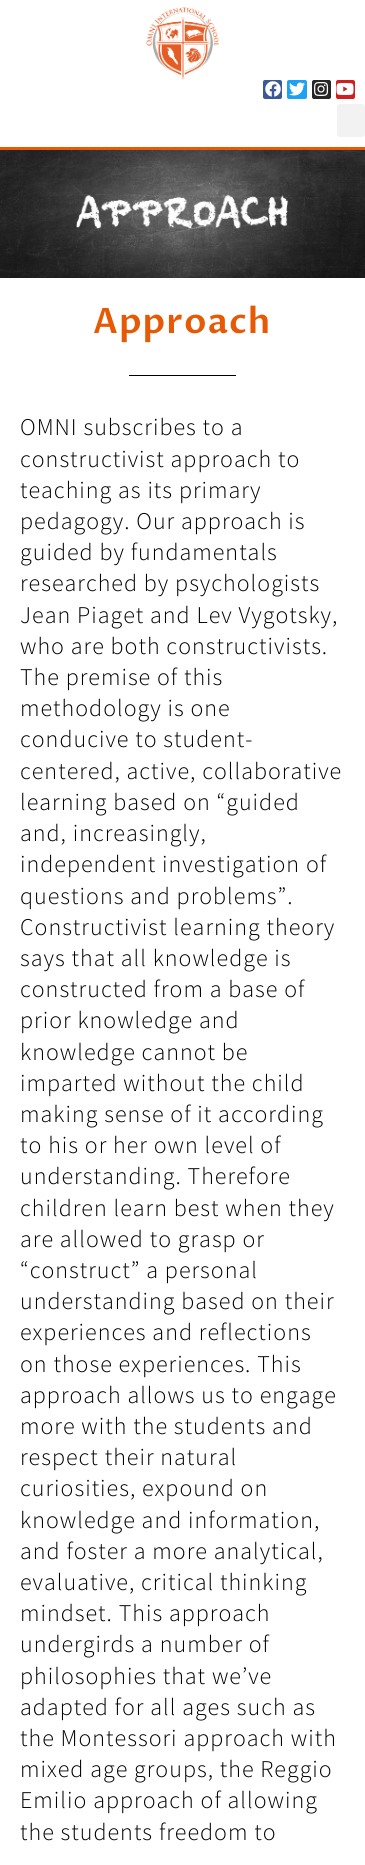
import math
import cairo


def use_color(cr, r, g, b):
  cr.set_source_rgb(r / 255, g / 255, b / 255)

def spaced_text(cr, x, y, s, letter, word):
  cr.move_to(x, y)
  for ch in s:
    cr.show_text(ch)
    cr.rel_move_to(letter + word * (ch == ' '), 0)

def box(cr, x, y, w, h, *color):
  use_color(cr, *color)
  cr.rectangle(x, y, w, h)
  cr.fill()

def round_rect(cr, x, y, w, h, r):
  cr.new_sub_path()
  for i, (u, v) in enumerate([(x + w - r, y + h - r), (x + r, y + h - r), (x + r, y + r), (x + w - r, y + r)]):
    cr.arc(u, v, r, i * math.pi / 2, (i + 1) * math.pi / 2)
  cr.close_path()

def picture(cr, path, x, y, w, h):
  cr.save()
  cr.set_source_surface(cairo.ImageSurface.create_from_png(path), x, y)
  cr.rectangle(x, y, w, h)
  cr.fill()
  cr.restore()

def draw(cr):
  use_color(cr, 255, 255, 255)
  cr.paint()
  picture(cr, "img_01.png", 146, 7, 73, 73)
  use_color(cr, 59, 89, 152)
  round_rect(cr, 263, 80, 19, 19, 2)
  cr.fill()
  picture(cr, "img_02.png", 265, 81, 16, 16)
  use_color(cr, 29, 161, 242)
  round_rect(cr, 287, 80, 20, 19, 2)
  cr.fill()
  picture(cr, "img_03.png", 289, 82, 16, 14)
  use_color(cr, 38, 38, 38)
  round_rect(cr, 312, 80, 19, 19, 2)
  cr.fill()
  picture(cr, "img_04.png", 314, 82, 15, 14)
  use_color(cr, 205, 32, 31)
  round_rect(cr, 336, 80, 19, 19, 2)
  cr.fill()
  picture(cr, "img_05.png", 336, 83, 18, 12)
  use_color(cr, 242, 242, 242)
  round_rect(cr, 337, 104, 28, 33, 3)
  cr.fill()
  box(cr, 0, 147, 365, 3, 231, 90, 5)
  picture(cr, "img_06.png", 0, 150, 365, 128)
  box(cr, 129, 375, 107, 1, 0, 0, 0)
  cr.select_font_face("Proza Libre SemiBold")
  cr.set_font_size(35)
  use_color(cr, 231, 90, 5)
  spaced_text(cr, 93, 333, "Approach", 1, 0)
  cr.select_font_face("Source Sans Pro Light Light")
  cr.set_font_size(24)
  use_color(cr, 0, 0, 0)
  spaced_text(cr, 20, 435, "OMNI subscribes to a", 1, 0)
  spaced_text(cr, 20, 467, "constructivist approach to", 1, 0)
  spaced_text(cr, 20, 498, "teaching as its primary", 1, 0)
  spaced_text(cr, 20, 529, "pedagogy. Our approach is", 1, 0)
  spaced_text(cr, 20, 560, "guided by fundamentals", 1, 0)
  spaced_text(cr, 20, 591, "researched by psychologists", 1, 0)
  spaced_text(cr, 20, 623, "Jean Piaget and Lev Vygotsky,", 1, 0)
  spaced_text(cr, 20, 654, "who are both constructivists.", 1, 0)
  spaced_text(cr, 20, 685, "The premise of this", 1, 0)
  spaced_text(cr, 20, 716, "methodology is one", 1, 0)
  spaced_text(cr, 20, 747, "conducive to student-", 1, 0)
  spaced_text(cr, 20, 779, "centered, active, collaborative", 1, 0)
  spaced_text(cr, 20, 810, "learning based on “guided", 1, 0)
  spaced_text(cr, 20, 841, "and, increasingly,", 1, 0)
  spaced_text(cr, 20, 872, "independent investigation of", 1, 0)
  spaced_text(cr, 20, 904, "questions and problems”.", 1, 0)
  spaced_text(cr, 20, 935, "Constructivist learning theory", 1, 0)
  spaced_text(cr, 20, 966, "says that all knowledge is", 1, 0)
  spaced_text(cr, 20, 997, "constructed from a base of", 1, 0)
  spaced_text(cr, 20, 1028, "prior knowledge and", 1, 0)
  spaced_text(cr, 20, 1060, "knowledge cannot be", 1, 0)
  spaced_text(cr, 20, 1091, "imparted without the child", 1, 0)
  spaced_text(cr, 20, 1122, "making sense of it according", 1, 0)
  spaced_text(cr, 20, 1153, "to his or her own level of", 1, 0)
  spaced_text(cr, 20, 1184, "understanding. Therefore", 1, 0)
  spaced_text(cr, 20, 1216, "children learn best when they", 1, 0)
  spaced_text(cr, 20, 1247, "are allowed to grasp or", 1, 0)
  spaced_text(cr, 20, 1278, "“construct” a personal", 1, 0)
  spaced_text(cr, 20, 1309, "understanding based on their", 1, 0)
  spaced_text(cr, 20, 1340, "experiences and reflections", 1, 0)
  spaced_text(cr, 20, 1372, "on those experiences. This", 1, 0)
  spaced_text(cr, 20, 1403, "approach allows us to engage", 1, 0)
  spaced_text(cr, 20, 1434, "more with the students and", 1, 0)
  spaced_text(cr, 20, 1465, "respect their natural", 1, 0)
  spaced_text(cr, 20, 1496, "curiosities, expound on", 1, 0)
  spaced_text(cr, 20, 1528, "knowledge and information,", 1, 0)
  spaced_text(cr, 20, 1559, "and foster a more analytical,", 1, 0)
  spaced_text(cr, 20, 1590, "evaluative, critical thinking", 1, 0)
  spaced_text(cr, 20, 1621, "mindset. This approach", 1, 0)
  spaced_text(cr, 20, 1652, "undergirds a number of", 1, 0)
  spaced_text(cr, 20, 1684, "philosophies that we’ve", 1, 0)
  spaced_text(cr, 20, 1715, "adapted for all ages such as", 1, 0)
  spaced_text(cr, 20, 1746, "the Montessori approach with", 1, 0)
  spaced_text(cr, 20, 1777, "mixed age groups, the Reggio", 1, 0)
  spaced_text(cr, 20, 1808, "Emilio approach of allowing", 1, 0)
  spaced_text(cr, 20, 1840, "the students freedom to", 1, 0)


surface = cairo.ImageSurface(cairo.FORMAT_RGB24, 365, 1865)
cr = cairo.Context(surface)
options = cairo.FontOptions()
options.set_hint_metrics(cairo.HINT_METRICS_OFF)
options.set_hint_style(cairo.HINT_STYLE_NONE)
cr.set_font_options(options)
cr.set_miter_limit(4)
draw(cr)
surface.write_to_png("out.png")
